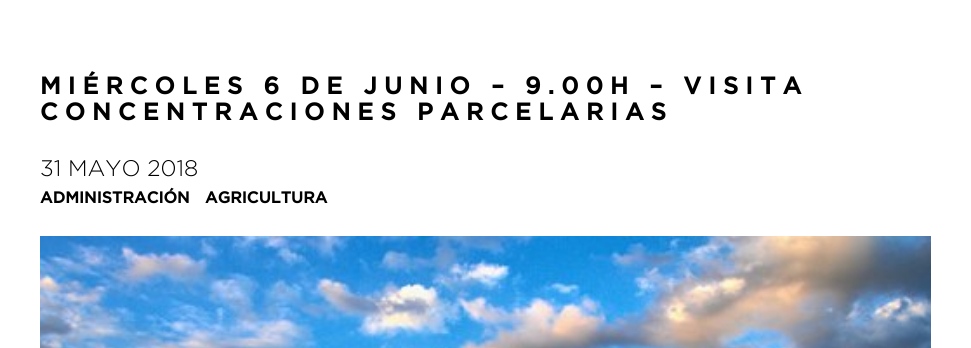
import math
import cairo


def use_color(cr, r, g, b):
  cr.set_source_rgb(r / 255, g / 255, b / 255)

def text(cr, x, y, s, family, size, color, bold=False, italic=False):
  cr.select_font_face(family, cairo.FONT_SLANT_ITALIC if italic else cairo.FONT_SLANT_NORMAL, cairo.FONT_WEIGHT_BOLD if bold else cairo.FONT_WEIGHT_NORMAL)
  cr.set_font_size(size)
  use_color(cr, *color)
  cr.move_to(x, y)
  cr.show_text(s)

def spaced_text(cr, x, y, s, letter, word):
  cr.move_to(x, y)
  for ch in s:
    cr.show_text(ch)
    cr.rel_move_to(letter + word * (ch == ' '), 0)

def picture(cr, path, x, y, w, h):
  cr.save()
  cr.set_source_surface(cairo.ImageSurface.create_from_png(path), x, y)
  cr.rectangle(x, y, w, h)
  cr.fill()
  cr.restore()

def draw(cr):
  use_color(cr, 255, 255, 255)
  cr.paint()
  picture(cr, "img_01.png", 40, 236, 891, 112)
  cr.select_font_face("Gotham", cairo.FONT_SLANT_NORMAL, cairo.FONT_WEIGHT_BOLD)
  cr.set_font_size(24)
  use_color(cr, 0, 0, 0)
  spaced_text(cr, 40, 94, "MIÉRCOLES 6 DE JUNIO – 9.00H – VISITA", 7, 0)
  spaced_text(cr, 40, 120, "CONCENTRACIONES PARCELARIAS", 7, 0)
  text(cr, 40, 176, "31 MAYO 2018", "Gotham Light", 22.5, (0, 0, 0))
  text(cr, 40, 203, "ADMINISTRACIÓN", "Gotham", 16, (0, 0, 0), bold=True)
  text(cr, 205, 203, "AGRICULTURA", "Gotham", 16, (0, 0, 0), bold=True)


surface = cairo.ImageSurface(cairo.FORMAT_RGB24, 971, 348)
cr = cairo.Context(surface)
options = cairo.FontOptions()
options.set_hint_metrics(cairo.HINT_METRICS_OFF)
options.set_hint_style(cairo.HINT_STYLE_NONE)
cr.set_font_options(options)
cr.set_miter_limit(4)
draw(cr)
surface.write_to_png("out.png")
